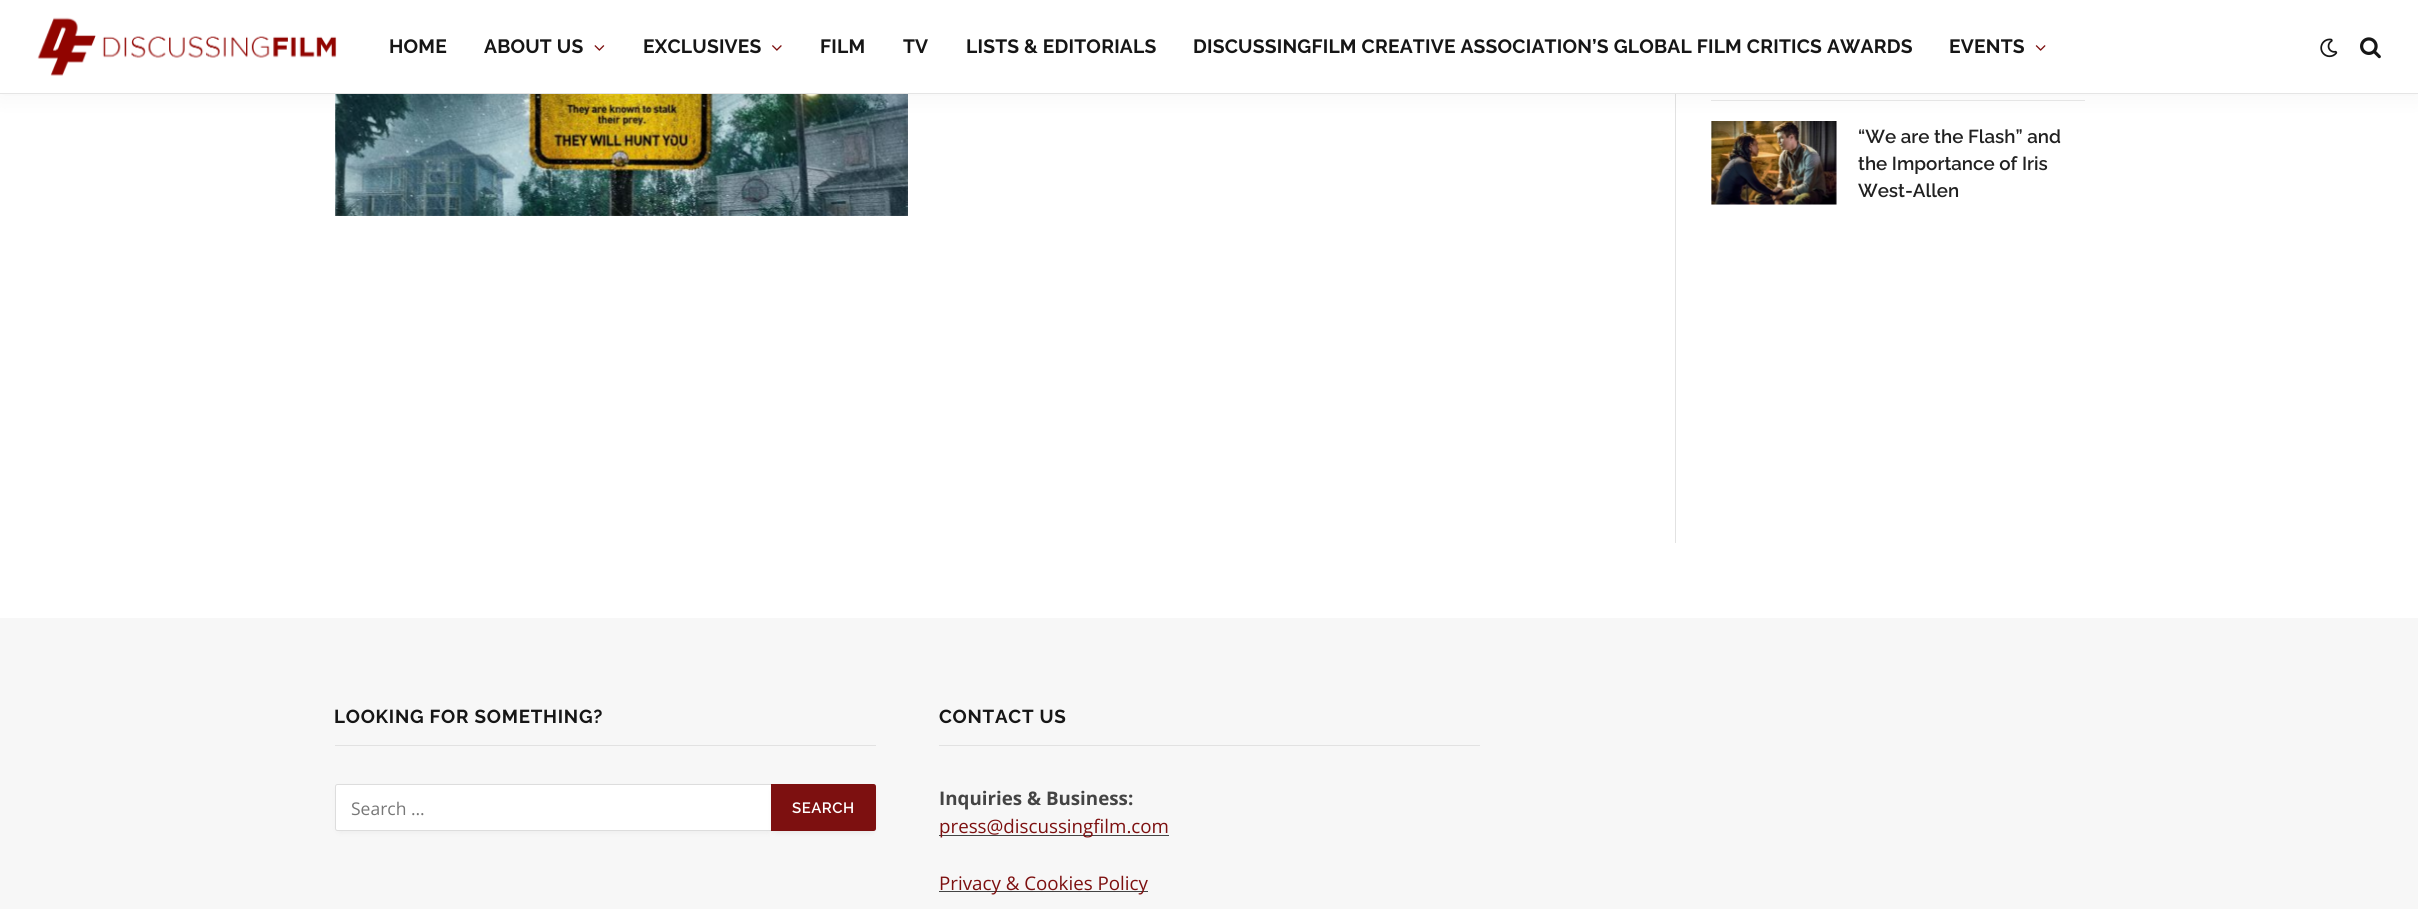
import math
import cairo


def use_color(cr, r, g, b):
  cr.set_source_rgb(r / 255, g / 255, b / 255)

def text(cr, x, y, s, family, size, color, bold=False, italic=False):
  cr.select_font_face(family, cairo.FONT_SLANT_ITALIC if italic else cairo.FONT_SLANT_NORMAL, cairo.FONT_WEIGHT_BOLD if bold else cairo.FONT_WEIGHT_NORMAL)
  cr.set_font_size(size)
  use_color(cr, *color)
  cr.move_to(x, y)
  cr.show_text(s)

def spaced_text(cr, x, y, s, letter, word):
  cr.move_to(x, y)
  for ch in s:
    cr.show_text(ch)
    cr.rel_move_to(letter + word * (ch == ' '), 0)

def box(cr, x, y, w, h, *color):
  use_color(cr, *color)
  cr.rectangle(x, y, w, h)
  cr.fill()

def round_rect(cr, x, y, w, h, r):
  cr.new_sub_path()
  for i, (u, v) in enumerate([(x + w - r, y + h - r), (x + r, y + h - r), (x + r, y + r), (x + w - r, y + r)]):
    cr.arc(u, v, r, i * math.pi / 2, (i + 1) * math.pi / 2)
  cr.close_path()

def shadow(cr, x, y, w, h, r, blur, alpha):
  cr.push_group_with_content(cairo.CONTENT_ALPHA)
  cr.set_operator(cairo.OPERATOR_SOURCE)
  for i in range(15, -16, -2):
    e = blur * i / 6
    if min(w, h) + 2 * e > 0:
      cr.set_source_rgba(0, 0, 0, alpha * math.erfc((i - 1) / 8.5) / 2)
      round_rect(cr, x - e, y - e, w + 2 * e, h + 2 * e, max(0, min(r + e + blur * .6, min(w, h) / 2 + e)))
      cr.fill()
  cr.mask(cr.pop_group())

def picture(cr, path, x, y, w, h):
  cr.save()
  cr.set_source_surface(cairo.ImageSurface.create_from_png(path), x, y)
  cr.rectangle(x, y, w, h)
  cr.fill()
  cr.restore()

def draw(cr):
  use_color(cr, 255, 255, 255)
  cr.paint()
  picture(cr, "img_07.png", 335, 94, 573, 122)
  box(cr, 1675, 94, 1, 449, 226, 226, 226)
  box(cr, 1711, 100, 374, 1, 232, 232, 232)
  picture(cr, "img_08.png", 1711, 121, 126, 84)
  use_color(cr, 0, 0, 0)
  shadow(cr, 0, 0, 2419, 94, 0, 12.5, 0.05)
  box(cr, 0, 0, 2418, 93, 255, 255, 255)
  box(cr, 0, 93, 2418, 1, 229, 229, 229)
  picture(cr, "img_01.png", 37, 17, 300, 59)
  picture(cr, "img_02.png", 594, 45, 11, 6)
  picture(cr, "img_03.png", 772, 45, 10, 6)
  picture(cr, "img_04.png", 2035, 45, 11, 6)
  picture(cr, "img_05.png", 2320, 38, 18, 20)
  picture(cr, "img_06.png", 2360, 37, 21, 22)
  box(cr, 0, 618, 2418, 291, 247, 247, 247)
  box(cr, 335, 745, 541, 1, 226, 226, 226)
  use_color(cr, 0, 0, 0)
  shadow(cr, 340, 791, 429, 38, 0, 4.5, 0.1)
  use_color(cr, 255, 255, 255)
  round_rect(cr, 335.5, 784.5, 438, 46, 2)
  cr.fill_preserve()
  use_color(cr, 221, 221, 221)
  cr.set_line_width(1)
  cr.stroke()
  use_color(cr, 0, 0, 0)
  shadow(cr, 776, 791, 95, 38, 0, 4.5, 0.16)
  use_color(cr, 125, 16, 16)
  cr.new_path()
  cr.move_to(771, 784)
  cr.line_to(873.5, 784)
  cr.curve_to(875, 784, 876, 785, 876, 786.5)
  cr.line_to(876, 828.5)
  cr.curve_to(876, 830, 875, 831, 873.5, 831)
  cr.line_to(771, 831)
  cr.close_path()
  cr.fill()
  box(cr, 939, 745, 541, 1, 226, 226, 226)
  box(cr, 939, 835, 230, 1, 68, 68, 68)
  box(cr, 939, 891, 209, 1, 68, 68, 68)
  cr.select_font_face("Raleway", cairo.FONT_SLANT_NORMAL, cairo.FONT_WEIGHT_BOLD)
  cr.set_font_size(19.25)
  use_color(cr, 22, 22, 22)
  spaced_text(cr, 389, 53, "HOME", 0.2, 0)
  spaced_text(cr, 484, 53, "ABOUT US", 0.2, 0)
  spaced_text(cr, 643, 53, "EXCLUSIVES", 0.2, 0)
  spaced_text(cr, 820, 53, "FILM", 0.2, 0)
  spaced_text(cr, 903, 53, "TV", 0.2, 0)
  spaced_text(cr, 966, 53, "LISTS & EDITORIALS", 0.2, 0)
  spaced_text(cr, 1193, 53, "DISCUSSINGFILM CREATIVE ASSOCIATION’S GLOBAL FILM CRITICS AWARDS", 0.2, 0)
  spaced_text(cr, 1949, 53, "EVENTS", 0.2, 0)
  text(cr, 1858, 143, "“We are the Flash” and", "Raleway SemiBold", 18.75, (33, 33, 33))
  text(cr, 1858, 170, "the Importance of Iris", "Raleway SemiBold", 18.75, (33, 33, 33))
  text(cr, 1858, 197, "West-Allen", "Raleway SemiBold", 18.75, (33, 33, 33))
  cr.select_font_face("Raleway", cairo.FONT_SLANT_NORMAL, cairo.FONT_WEIGHT_BOLD)
  use_color(cr, 22, 22, 22)
  spaced_text(cr, 334, 723, "LOOKING FOR SOMETHING?", 0.75, 0)
  text(cr, 351, 815, "Search …", "Open Sans", 17.5, (119, 119, 119))
  cr.select_font_face("Raleway SemiBold")
  cr.set_font_size(15)
  use_color(cr, 255, 255, 255)
  spaced_text(cr, 792, 813, "SEARCH", 0.5, 0)
  cr.select_font_face("Raleway", cairo.FONT_SLANT_NORMAL, cairo.FONT_WEIGHT_BOLD)
  cr.set_font_size(18.75)
  use_color(cr, 22, 22, 22)
  spaced_text(cr, 939, 723, "CONTACT US", 0.75, 0)
  text(cr, 939, 805, "Inquiries & Business:", "Open Sans", 18.75, (68, 68, 68), bold=True)
  text(cr, 939, 833, "press@discussingfilm.com", "Open Sans", 18.75, (125, 16, 16))
  text(cr, 939, 890, "Privacy & Cookies Policy", "Open Sans", 18.75, (125, 16, 16))


surface = cairo.ImageSurface(cairo.FORMAT_RGB24, 2418, 909)
cr = cairo.Context(surface)
options = cairo.FontOptions()
options.set_hint_metrics(cairo.HINT_METRICS_OFF)
options.set_hint_style(cairo.HINT_STYLE_NONE)
cr.set_font_options(options)
cr.set_miter_limit(4)
draw(cr)
surface.write_to_png("out.png")
